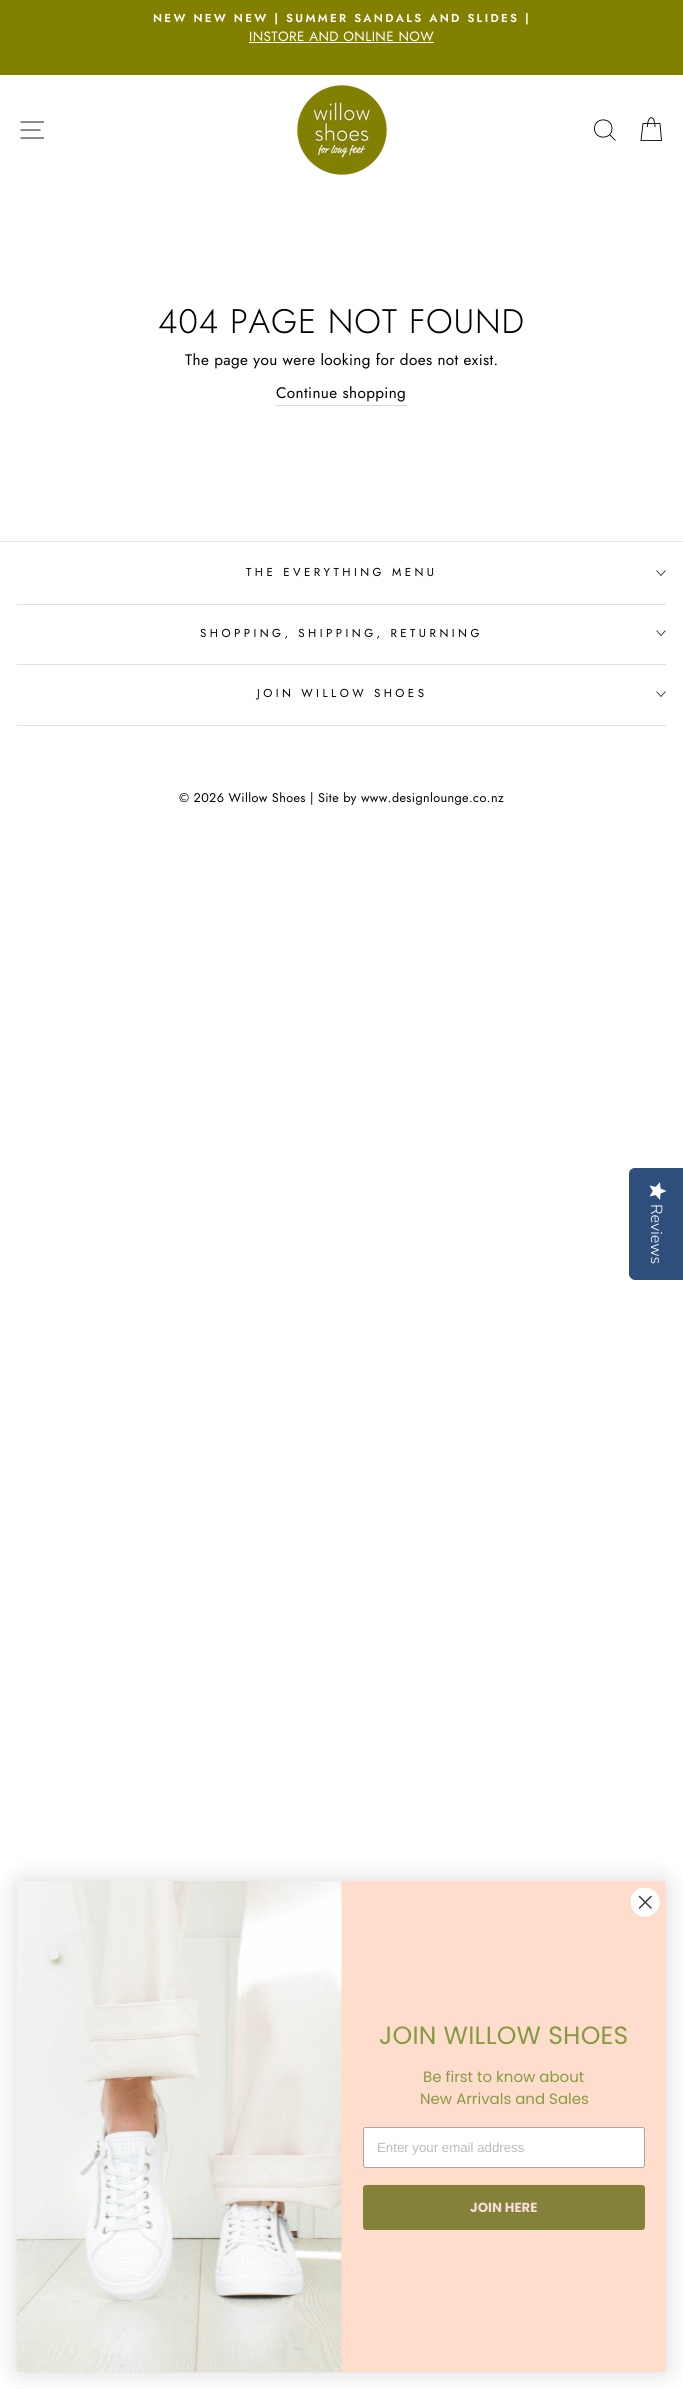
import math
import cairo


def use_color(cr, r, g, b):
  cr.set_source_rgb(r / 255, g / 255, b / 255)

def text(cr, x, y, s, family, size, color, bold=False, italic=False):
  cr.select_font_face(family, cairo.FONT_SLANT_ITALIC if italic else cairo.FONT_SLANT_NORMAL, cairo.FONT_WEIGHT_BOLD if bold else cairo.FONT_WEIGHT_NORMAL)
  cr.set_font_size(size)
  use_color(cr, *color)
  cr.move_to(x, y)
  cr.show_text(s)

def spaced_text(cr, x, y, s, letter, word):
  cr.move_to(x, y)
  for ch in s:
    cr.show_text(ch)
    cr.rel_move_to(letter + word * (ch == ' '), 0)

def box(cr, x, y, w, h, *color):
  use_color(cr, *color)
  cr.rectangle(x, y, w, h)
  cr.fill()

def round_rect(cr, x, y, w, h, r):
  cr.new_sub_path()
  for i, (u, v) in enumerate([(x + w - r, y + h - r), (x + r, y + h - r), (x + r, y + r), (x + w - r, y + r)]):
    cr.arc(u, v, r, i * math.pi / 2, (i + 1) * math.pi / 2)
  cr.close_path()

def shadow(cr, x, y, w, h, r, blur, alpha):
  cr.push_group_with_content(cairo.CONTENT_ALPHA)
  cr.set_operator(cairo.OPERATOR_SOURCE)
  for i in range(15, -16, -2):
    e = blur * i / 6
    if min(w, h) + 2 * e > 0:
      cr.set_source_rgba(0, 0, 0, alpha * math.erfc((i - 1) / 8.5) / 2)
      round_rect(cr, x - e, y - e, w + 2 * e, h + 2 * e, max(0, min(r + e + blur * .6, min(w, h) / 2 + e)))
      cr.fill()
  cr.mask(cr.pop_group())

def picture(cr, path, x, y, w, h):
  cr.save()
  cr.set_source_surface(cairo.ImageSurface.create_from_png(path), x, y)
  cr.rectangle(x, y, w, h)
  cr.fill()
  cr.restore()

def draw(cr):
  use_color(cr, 255, 255, 255)
  cr.paint()
  box(cr, 0, 0, 683, 75, 131, 128, 0)
  box(cr, 249, 42, 185, 1, 255, 255, 255)
  cr.new_path()
  cr.move_to(20.5, 122)
  cr.line_to(44, 122)
  cr.move_to(20.5, 130)
  cr.line_to(40.5, 130)
  cr.move_to(20.5, 138)
  cr.line_to(44, 138)
  use_color(cr, 0, 0, 0)
  cr.set_line_width(0.9)
  cr.stroke()
  picture(cr, "img_01.png", 297, 85, 90, 90)
  cr.new_path()
  cr.move_to(612, 128.5)
  cr.curve_to(612, 140, 594.5, 140, 594.5, 128.5)
  cr.curve_to(594.5, 117, 612, 117, 612, 128.5)
  cr.close_path()
  cr.move_to(615.5, 140.5)
  cr.line_to(609.5, 134.5)
  cr.move_to(647.5, 127)
  cr.curve_to(647.5, 114.5, 655, 114.5, 655, 127)
  cr.stroke()
  cr.new_path()
  cr.move_to(643, 123.5)
  cr.line_to(660, 123.5)
  cr.line_to(661.5, 140.5)
  cr.line_to(641, 140.5)
  cr.close_path()
  cr.stroke()
  box(cr, 276, 405, 131, 1, 217, 217, 217)
  box(cr, 0, 541, 683, 1, 232, 232, 225)
  cr.new_path()
  cr.move_to(656.5, 570.5)
  cr.line_to(661, 575.5)
  cr.line_to(665.5, 570.5)
  use_color(cr, 0, 0, 0)
  cr.set_line_width(0.7)
  cr.stroke()
  box(cr, 17, 604, 649, 1, 224, 224, 224)
  cr.new_path()
  cr.move_to(656.5, 630.5)
  cr.line_to(661, 635.5)
  cr.line_to(665.5, 630.5)
  use_color(cr, 0, 0, 0)
  cr.stroke()
  box(cr, 17, 664, 649, 1, 224, 224, 224)
  cr.new_path()
  cr.move_to(656.5, 691.5)
  cr.line_to(661, 696.5)
  cr.line_to(665.5, 691.5)
  use_color(cr, 0, 0, 0)
  cr.stroke()
  box(cr, 17, 725, 649, 1, 224, 224, 224)
  use_color(cr, 46, 79, 124)
  cr.new_path()
  cr.move_to(683, 1168)
  cr.line_to(683, 1280)
  cr.line_to(635, 1280)
  cr.curve_to(632, 1280, 629, 1277, 629, 1274)
  cr.line_to(629, 1174)
  cr.curve_to(629, 1170, 632, 1168, 635, 1168)
  cr.close_path()
  cr.fill()
  picture(cr, "img_02.png", 649, 1182, 18, 18)
  use_color(cr, 0, 0, 0)
  shadow(cr, 17, 1881, 649, 491, 3, 12.5, 0.15)
  use_color(cr, 255, 221, 204)
  round_rect(cr, 17, 1881, 649, 491, 3)
  cr.fill()
  use_color(cr, 255, 255, 255)
  cr.arc(645, 1902, 14, 0, 2 * math.pi)
  cr.fill()
  cr.save()
  cr.rectangle(631, 1888, 29, 29)
  cr.clip()
  cr.arc(645, 1902, 14, 0, 2 * math.pi)
  cr.set_line_width(1.5)
  cr.stroke()
  cr.restore()
  cr.new_path()
  cr.move_to(639.5, 1896.5)
  cr.line_to(651, 1908)
  cr.move_to(639.5, 1908)
  cr.line_to(651, 1896.5)
  cr.close_path()
  use_color(cr, 55, 63, 71)
  cr.set_line_width(1.5)
  cr.set_line_cap(cairo.LINE_CAP_ROUND)
  cr.set_line_join(cairo.LINE_JOIN_ROUND)
  cr.stroke()
  picture(cr, "img_03.png", 16, 1881, 326, 492)
  use_color(cr, 255, 255, 255)
  round_rect(cr, 363.4, 2127.4, 281.2, 40.2, 2.6)
  cr.fill_preserve()
  use_color(cr, 148, 149, 150)
  cr.set_line_width(0.8)
  cr.set_line_cap(cairo.LINE_CAP_BUTT)
  cr.set_line_join(cairo.LINE_JOIN_MITER)
  cr.stroke()
  use_color(cr, 132, 130, 56)
  round_rect(cr, 363, 2185, 282, 45, 3)
  cr.fill()
  cr.select_font_face("Jost SemiBold")
  cr.set_font_size(11.5)
  use_color(cr, 255, 255, 255)
  spaced_text(cr, 153, 22, "NEW NEW NEW | SUMMER SANDALS AND SLIDES |", 2.3, 0)
  cr.select_font_face("Jost")
  cr.set_font_size(13.5)
  spaced_text(cr, 249, 41, "INSTORE AND ONLINE NOW", 0.38, 0)
  cr.select_font_face("Jost Light")
  cr.set_font_size(34)
  use_color(cr, 0, 0, 0)
  spaced_text(cr, 158, 333, "404 PAGE NOT FOUND", 0.8, 0)
  cr.select_font_face("Jost")
  cr.set_font_size(15.3)
  spaced_text(cr, 185, 365, "The page you were looking for does not exist.", 0.38, 0)
  spaced_text(cr, 276, 398, "Continue shopping", 0.38, 0)
  cr.set_font_size(11.5)
  spaced_text(cr, 246, 576, "THE EVERYTHING MENU", 3.45, 0)
  spaced_text(cr, 200, 637, "SHOPPING, SHIPPING, RETURNING", 3.45, 0)
  spaced_text(cr, 257, 697, "JOIN WILLOW SHOES", 3.45, 0)
  cr.set_font_size(12.6)
  spaced_text(cr, 179, 802, "© 2026 Willow Shoes | Site by www.designlounge.co.nz", 0.38, 0)
  cr.save()
  cr.translate(651, 1204)
  cr.rotate(90 * math.pi / 180)
  text(cr, 0, 0, "Reviews", "Nunito Sans Light", 16, (255, 255, 255))
  cr.restore()
  cr.select_font_face("Poppins")
  cr.set_font_size(25)
  use_color(cr, 133, 154, 67)
  spaced_text(cr, 379, 2044, "JOIN WILLOW SHOES", 0.25, 0)
  text(cr, 423, 2082, "Be first to know about", "Poppins", 15, (133, 154, 67))
  text(cr, 420, 2104, "New Arrivals and Sales", "Poppins", 15, (133, 154, 67))
  text(cr, 377, 2152, "Enter your email address", "Liberation Sans", 13.25, (187, 187, 187))
  text(cr, 470, 2212, "JOIN HERE", "Poppins", 13.25, (247, 221, 217), bold=True)


surface = cairo.ImageSurface(cairo.FORMAT_RGB24, 683, 2389)
cr = cairo.Context(surface)
options = cairo.FontOptions()
options.set_hint_metrics(cairo.HINT_METRICS_OFF)
options.set_hint_style(cairo.HINT_STYLE_NONE)
cr.set_font_options(options)
cr.set_miter_limit(4)
draw(cr)
surface.write_to_png("out.png")
